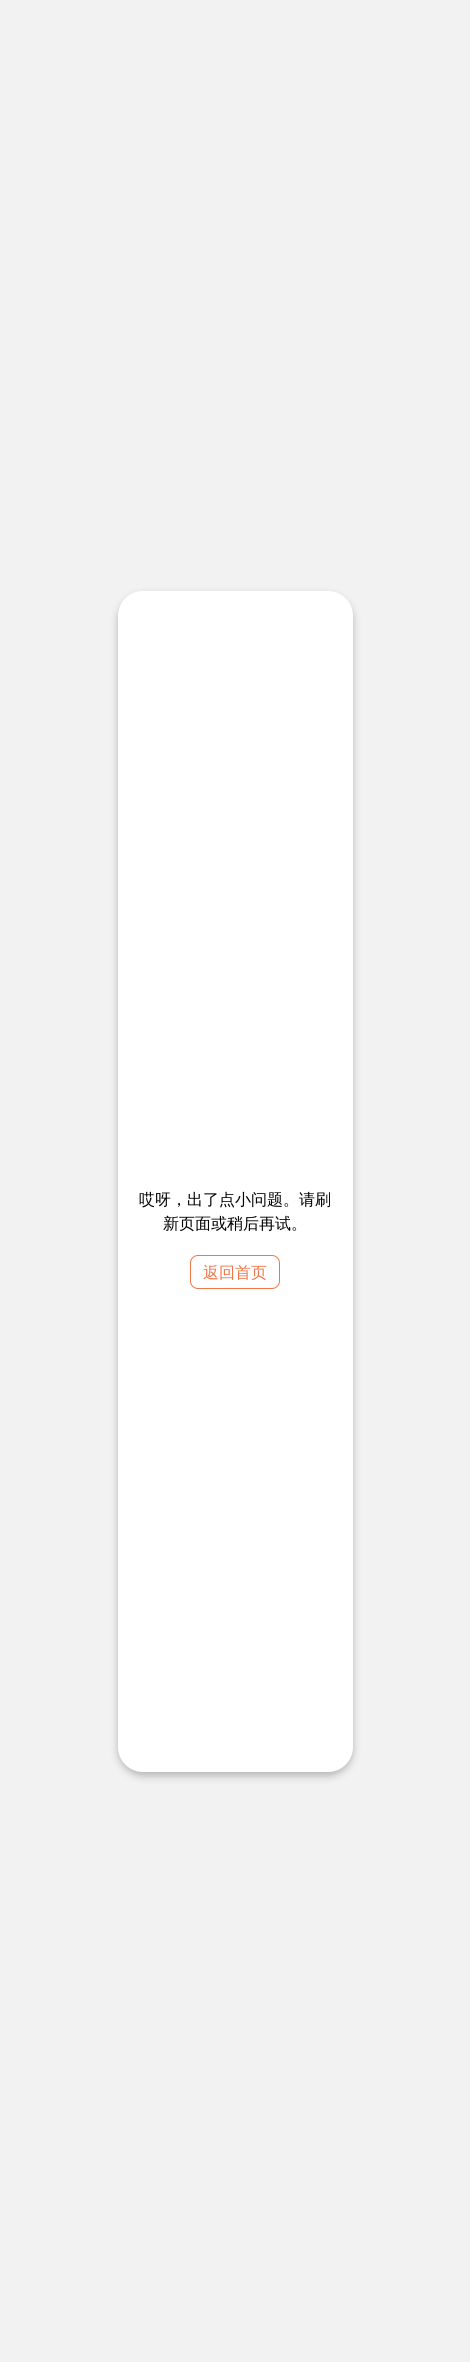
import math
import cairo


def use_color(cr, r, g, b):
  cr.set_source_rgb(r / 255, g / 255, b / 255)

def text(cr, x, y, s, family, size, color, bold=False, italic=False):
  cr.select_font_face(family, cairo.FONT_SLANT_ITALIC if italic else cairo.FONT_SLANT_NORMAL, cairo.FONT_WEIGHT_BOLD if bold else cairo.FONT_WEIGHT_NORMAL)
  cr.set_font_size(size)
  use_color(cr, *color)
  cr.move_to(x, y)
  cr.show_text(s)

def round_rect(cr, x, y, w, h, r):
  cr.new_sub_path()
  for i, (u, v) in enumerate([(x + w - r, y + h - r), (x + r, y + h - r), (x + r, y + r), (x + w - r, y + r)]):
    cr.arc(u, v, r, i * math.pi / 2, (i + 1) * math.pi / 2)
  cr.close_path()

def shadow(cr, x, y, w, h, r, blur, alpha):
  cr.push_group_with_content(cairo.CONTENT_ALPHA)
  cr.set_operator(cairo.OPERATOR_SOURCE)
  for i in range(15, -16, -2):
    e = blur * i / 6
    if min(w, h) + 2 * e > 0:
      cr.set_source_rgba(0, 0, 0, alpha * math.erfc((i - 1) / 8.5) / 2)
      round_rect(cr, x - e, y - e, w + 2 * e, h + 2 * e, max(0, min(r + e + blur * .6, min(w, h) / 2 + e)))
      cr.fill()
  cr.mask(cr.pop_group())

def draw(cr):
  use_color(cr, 242, 242, 242)
  cr.paint()
  use_color(cr, 0, 0, 0)
  shadow(cr, 118, 595, 235, 1181, 25, 4, 0.25)
  use_color(cr, 255, 255, 255)
  round_rect(cr, 118, 591, 235, 1181, 25)
  cr.fill()
  round_rect(cr, 190.5, 1255.5, 89, 33, 7.5)
  use_color(cr, 242, 117, 71)
  cr.set_line_width(1)
  cr.stroke()
  text(cr, 139, 1205, "哎呀，出了点小问题。请刷", "WenQuanYi Zen Hei Medium", 16, (0, 0, 0))
  text(cr, 163, 1229, "新页面或稍后再试。", "WenQuanYi Zen Hei Medium", 16, (0, 0, 0))
  text(cr, 203, 1278, "返回首页", "WenQuanYi Zen Hei Medium", 16, (242, 117, 71))


surface = cairo.ImageSurface(cairo.FORMAT_RGB24, 470, 2362)
cr = cairo.Context(surface)
options = cairo.FontOptions()
options.set_hint_metrics(cairo.HINT_METRICS_OFF)
options.set_hint_style(cairo.HINT_STYLE_NONE)
cr.set_font_options(options)
cr.set_miter_limit(4)
draw(cr)
surface.write_to_png("out.png")
